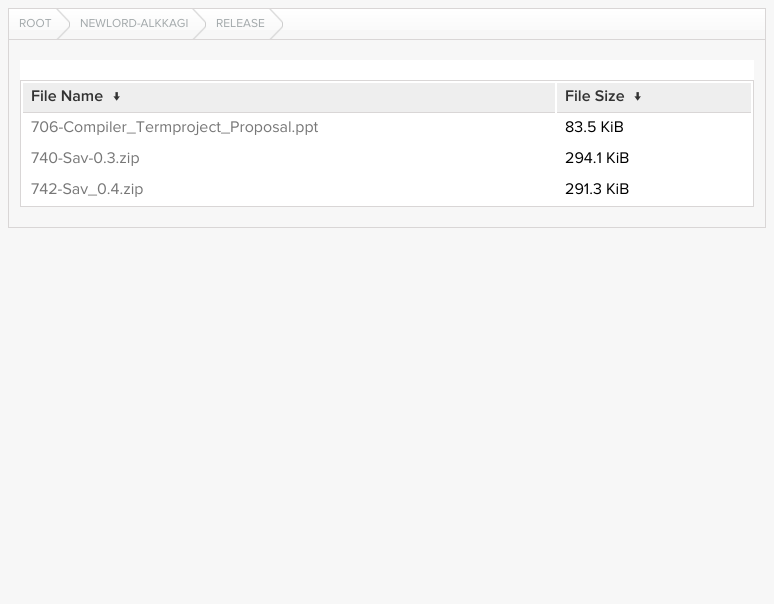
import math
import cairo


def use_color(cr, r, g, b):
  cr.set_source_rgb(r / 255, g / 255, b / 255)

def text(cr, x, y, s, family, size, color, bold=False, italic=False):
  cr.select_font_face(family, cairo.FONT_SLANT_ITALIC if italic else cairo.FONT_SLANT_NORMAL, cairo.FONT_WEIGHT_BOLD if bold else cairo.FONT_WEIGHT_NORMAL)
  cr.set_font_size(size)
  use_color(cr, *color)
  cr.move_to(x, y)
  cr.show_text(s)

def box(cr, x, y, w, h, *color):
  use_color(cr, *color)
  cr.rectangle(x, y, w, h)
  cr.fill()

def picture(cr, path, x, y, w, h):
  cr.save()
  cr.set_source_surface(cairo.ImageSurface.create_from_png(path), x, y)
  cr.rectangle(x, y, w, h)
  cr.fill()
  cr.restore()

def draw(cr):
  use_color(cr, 247, 247, 247)
  cr.paint()
  cr.rectangle(8.5, 8.5, 757, 219)
  use_color(cr, 217, 214, 214)
  cr.set_line_width(1)
  cr.stroke()
  gradient = cairo.LinearGradient(387, 9, 387, 39)
  gradient.add_color_stop_rgba(0, 1, 1, 1, 1)
  gradient.add_color_stop_rgba(1, 0.969, 0.969, 0.969, 1)
  cr.set_source(gradient)
  cr.rectangle(9, 9, 756, 21)
  cr.fill()
  box(cr, 9, 39, 756, 1, 217, 214, 214)
  picture(cr, "img_01.png", 56, 9, 14, 30)
  picture(cr, "img_01.png", 192, 9, 14, 30)
  picture(cr, "img_01.png", 269, 9, 14, 30)
  box(cr, 20, 60, 734, 146, 255, 255, 255)
  cr.rectangle(20.5, 80.5, 733, 126)
  use_color(cr, 217, 214, 214)
  cr.stroke()
  box(cr, 23, 83, 532, 29, 238, 238, 238)
  box(cr, 23, 112, 532, 1, 217, 214, 214)
  box(cr, 557, 83, 194, 29, 238, 238, 238)
  box(cr, 557, 112, 194, 1, 217, 214, 214)
  text(cr, 19, 27, "ROOT", "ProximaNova", 12, (163, 169, 171))
  text(cr, 80, 27, "NEWLORD-ALKKAGI", "ProximaNova", 12, (163, 169, 171))
  text(cr, 216, 27, "RELEASE", "ProximaNova", 12, (163, 169, 171))
  text(cr, 31, 101, "File Name", "ProximaNova SemiBold", 16, (51, 51, 51))
  text(cr, 112, 101, "↓", "ProximaNova SemiBold", 16, (51, 51, 51))
  text(cr, 565, 101, "File Size", "ProximaNova SemiBold", 16, (51, 51, 51))
  text(cr, 633, 101, "↓", "ProximaNova SemiBold", 16, (51, 51, 51))
  text(cr, 31, 132, "706-Compiler_Termproject_Proposal.ppt", "ProximaNova", 16, (119, 119, 119))
  text(cr, 565, 132, "83.5 KiB", "ProximaNova", 16, (0, 0, 0))
  text(cr, 31, 163, "740-Sav-0.3.zip", "ProximaNova", 16, (119, 119, 119))
  text(cr, 565, 163, "294.1 KiB", "ProximaNova", 16, (0, 0, 0))
  text(cr, 31, 194, "742-Sav_0.4.zip", "ProximaNova", 16, (119, 119, 119))
  text(cr, 565, 194, "291.3 KiB", "ProximaNova", 16, (0, 0, 0))


surface = cairo.ImageSurface(cairo.FORMAT_RGB24, 774, 604)
cr = cairo.Context(surface)
options = cairo.FontOptions()
options.set_hint_metrics(cairo.HINT_METRICS_OFF)
options.set_hint_style(cairo.HINT_STYLE_NONE)
cr.set_font_options(options)
cr.set_miter_limit(4)
draw(cr)
surface.write_to_png("out.png")
